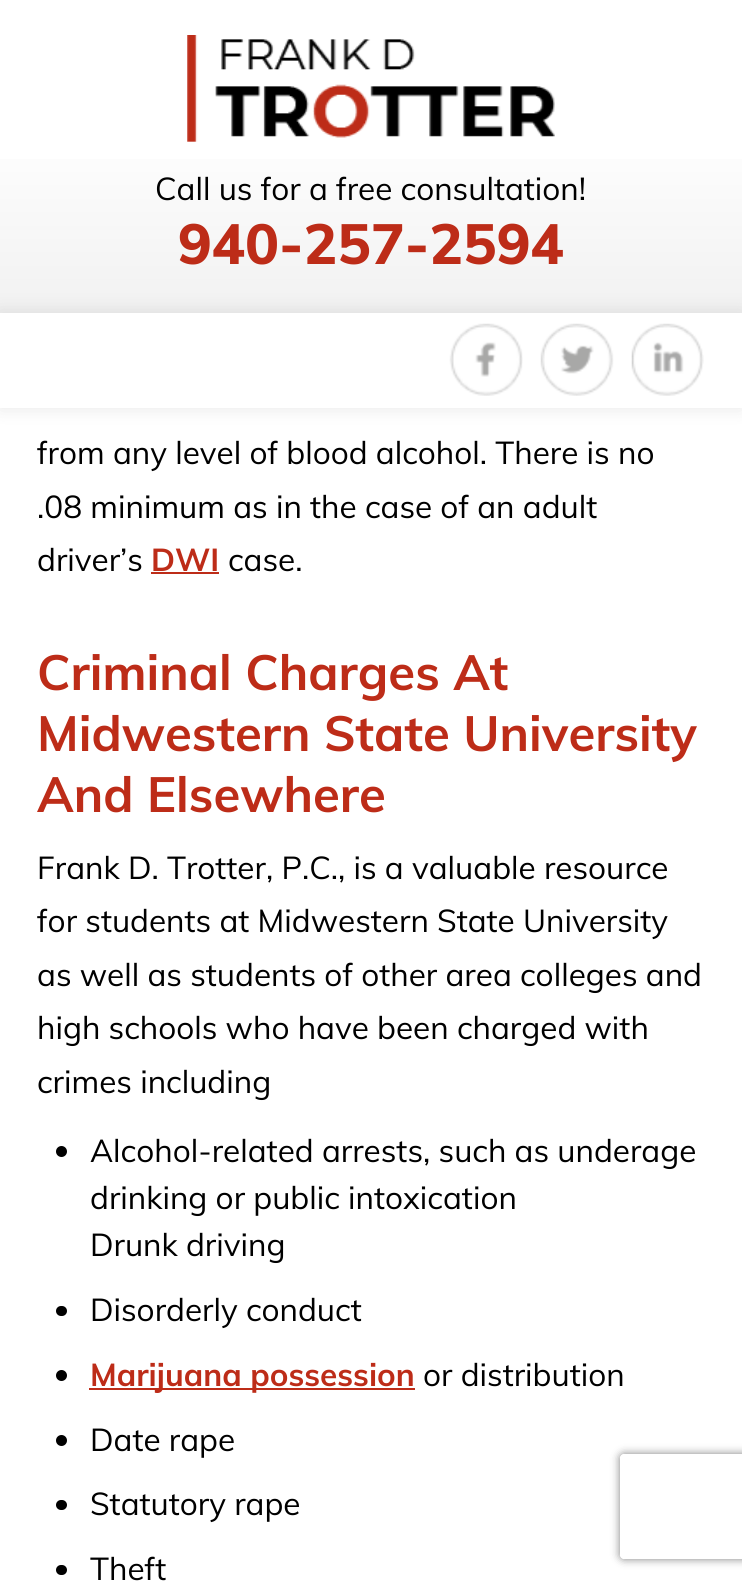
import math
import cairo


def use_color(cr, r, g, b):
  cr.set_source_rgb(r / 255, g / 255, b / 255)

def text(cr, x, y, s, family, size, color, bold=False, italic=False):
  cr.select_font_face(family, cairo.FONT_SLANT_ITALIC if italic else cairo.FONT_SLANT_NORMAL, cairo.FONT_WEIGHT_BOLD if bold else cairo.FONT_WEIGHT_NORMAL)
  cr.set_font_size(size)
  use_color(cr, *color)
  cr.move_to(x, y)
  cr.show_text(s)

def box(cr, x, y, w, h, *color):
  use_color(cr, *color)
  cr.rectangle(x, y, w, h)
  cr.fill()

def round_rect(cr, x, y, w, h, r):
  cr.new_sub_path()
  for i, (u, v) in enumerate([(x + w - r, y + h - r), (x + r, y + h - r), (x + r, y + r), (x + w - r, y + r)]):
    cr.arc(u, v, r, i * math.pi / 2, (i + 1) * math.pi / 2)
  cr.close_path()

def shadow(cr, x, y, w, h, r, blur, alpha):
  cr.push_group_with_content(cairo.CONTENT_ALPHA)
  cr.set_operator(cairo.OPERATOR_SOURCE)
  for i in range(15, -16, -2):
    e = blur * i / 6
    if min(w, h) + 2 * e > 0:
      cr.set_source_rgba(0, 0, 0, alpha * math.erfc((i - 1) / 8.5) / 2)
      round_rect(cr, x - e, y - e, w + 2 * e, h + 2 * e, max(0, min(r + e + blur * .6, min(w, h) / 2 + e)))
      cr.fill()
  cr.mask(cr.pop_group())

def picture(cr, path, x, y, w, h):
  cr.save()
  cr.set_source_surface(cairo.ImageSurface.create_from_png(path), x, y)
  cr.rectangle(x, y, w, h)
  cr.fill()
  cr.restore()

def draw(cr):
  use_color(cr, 255, 255, 255)
  cr.paint()
  gradient = cairo.LinearGradient(371, 313, 371, 0)
  gradient.add_color_stop_rgba(0, 0.945, 0.945, 0.945, 1)
  gradient.add_color_stop_rgba(0.6, 1, 1, 1, 1)
  cr.set_source(gradient)
  cr.rectangle(0, 159, 742, 154)
  cr.fill()
  picture(cr, "img_01.png", 187, 35, 368, 107)
  use_color(cr, 0, 0, 0)
  shadow(cr, 0, 313, 742, 95, 0, 9, 0.1)
  box(cr, 0, 313, 742, 95, 255, 255, 255)
  picture(cr, "img_02.png", 449, 323, 74, 73)
  picture(cr, "img_03.png", 540, 323, 74, 73)
  picture(cr, "img_04.png", 631, 323, 73, 73)
  box(cr, 151, 572, 68, 2, 189, 44, 24)
  use_color(cr, 0, 0, 0)
  cr.arc(61.5, 1151.5, 5.5, 0, 2 * math.pi)
  cr.fill()
  round_rect(cr, 56, 1306, 11, 10, 5)
  cr.fill()
  cr.arc(61.5, 1375.5, 5.5, 0, 2 * math.pi)
  cr.fill()
  box(cr, 89, 1388, 326, 2, 189, 44, 24)
  use_color(cr, 0, 0, 0)
  cr.arc(61.5, 1440.5, 5.5, 0, 2 * math.pi)
  cr.fill()
  round_rect(cr, 56, 1500, 11, 10, 5)
  cr.fill()
  round_rect(cr, 56, 1565, 11, 10, 5)
  cr.fill()
  cr.save()
  cr.set_fill_rule(cairo.FILL_RULE_EVEN_ODD)
  cr.new_path()
  cr.move_to(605, 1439)
  cr.line_to(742, 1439)
  cr.line_to(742, 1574)
  cr.line_to(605, 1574)
  cr.close_path()
  cr.move_to(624, 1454)
  cr.line_to(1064, 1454)
  cr.curve_to(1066, 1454, 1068, 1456, 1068, 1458)
  cr.line_to(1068, 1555)
  cr.curve_to(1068, 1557, 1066, 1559, 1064, 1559)
  cr.line_to(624, 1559)
  cr.curve_to(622, 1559, 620, 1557, 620, 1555)
  cr.line_to(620, 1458)
  cr.curve_to(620, 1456, 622, 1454, 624, 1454)
  cr.close_path()
  cr.clip()
  use_color(cr, 128, 128, 128)
  shadow(cr, 620, 1454, 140, 105, 4, 4.5, 1)
  cr.restore()
  text(cr, 155, 200, "Call us for a free consultation!", "Muli", 31.5, (0, 0, 0))
  text(cr, 178, 264, "940-257-2594", "Muli ExtraBold", 56, (189, 44, 24))
  text(cr, 37, 464, "from any level of blood alcohol. There is no", "Muli", 31.5, (0, 0, 0))
  text(cr, 37, 518, ".08 minimum as in the case of an adult", "Muli", 31.5, (0, 0, 0))
  text(cr, 37, 571, "driver’s", "Muli", 31.5, (0, 0, 0))
  text(cr, 151, 571, "DWI", "Muli", 31.5, (189, 44, 24), bold=True)
  text(cr, 228, 571, "case.", "Muli", 31.5, (0, 0, 0))
  text(cr, 37, 690, "Criminal Charges At", "Muli", 49, (189, 44, 24), bold=True)
  text(cr, 37, 751, "Midwestern State University", "Muli", 49, (189, 44, 24), bold=True)
  text(cr, 37, 812, "And Elsewhere", "Muli", 49, (189, 44, 24), bold=True)
  text(cr, 37, 879, "Frank D. Trotter, P.C., is a valuable resource", "Muli", 31.5, (0, 0, 0))
  text(cr, 37, 932, "for students at Midwestern State University", "Muli", 31.5, (0, 0, 0))
  text(cr, 37, 986, "as well as students of other area colleges and", "Muli", 31.5, (0, 0, 0))
  text(cr, 37, 1039, "high schools who have been charged with", "Muli", 31.5, (0, 0, 0))
  text(cr, 37, 1093, "crimes including", "Muli", 31.5, (0, 0, 0))
  text(cr, 90, 1162, "Alcohol-related arrests, such as underage", "Muli", 31.5, (0, 0, 0))
  text(cr, 90, 1209, "drinking or public intoxication", "Muli", 31.5, (0, 0, 0))
  text(cr, 90, 1256, "Drunk driving", "Muli", 31.5, (0, 0, 0))
  text(cr, 90, 1321, "Disorderly conduct", "Muli", 31.5, (0, 0, 0))
  text(cr, 90, 1386, "Marijuana possession", "Muli", 31.5, (189, 44, 24), bold=True)
  text(cr, 423, 1386, "or distribution", "Muli", 31.5, (0, 0, 0))
  text(cr, 90, 1451, "Date rape", "Muli", 31.5, (0, 0, 0))
  text(cr, 90, 1515, "Statutory rape", "Muli", 31.5, (0, 0, 0))
  text(cr, 90, 1580, "Theft", "Muli", 31.5, (0, 0, 0))


surface = cairo.ImageSurface(cairo.FORMAT_RGB24, 742, 1583)
cr = cairo.Context(surface)
options = cairo.FontOptions()
options.set_hint_metrics(cairo.HINT_METRICS_OFF)
options.set_hint_style(cairo.HINT_STYLE_NONE)
cr.set_font_options(options)
cr.set_miter_limit(4)
draw(cr)
surface.write_to_png("out.png")
